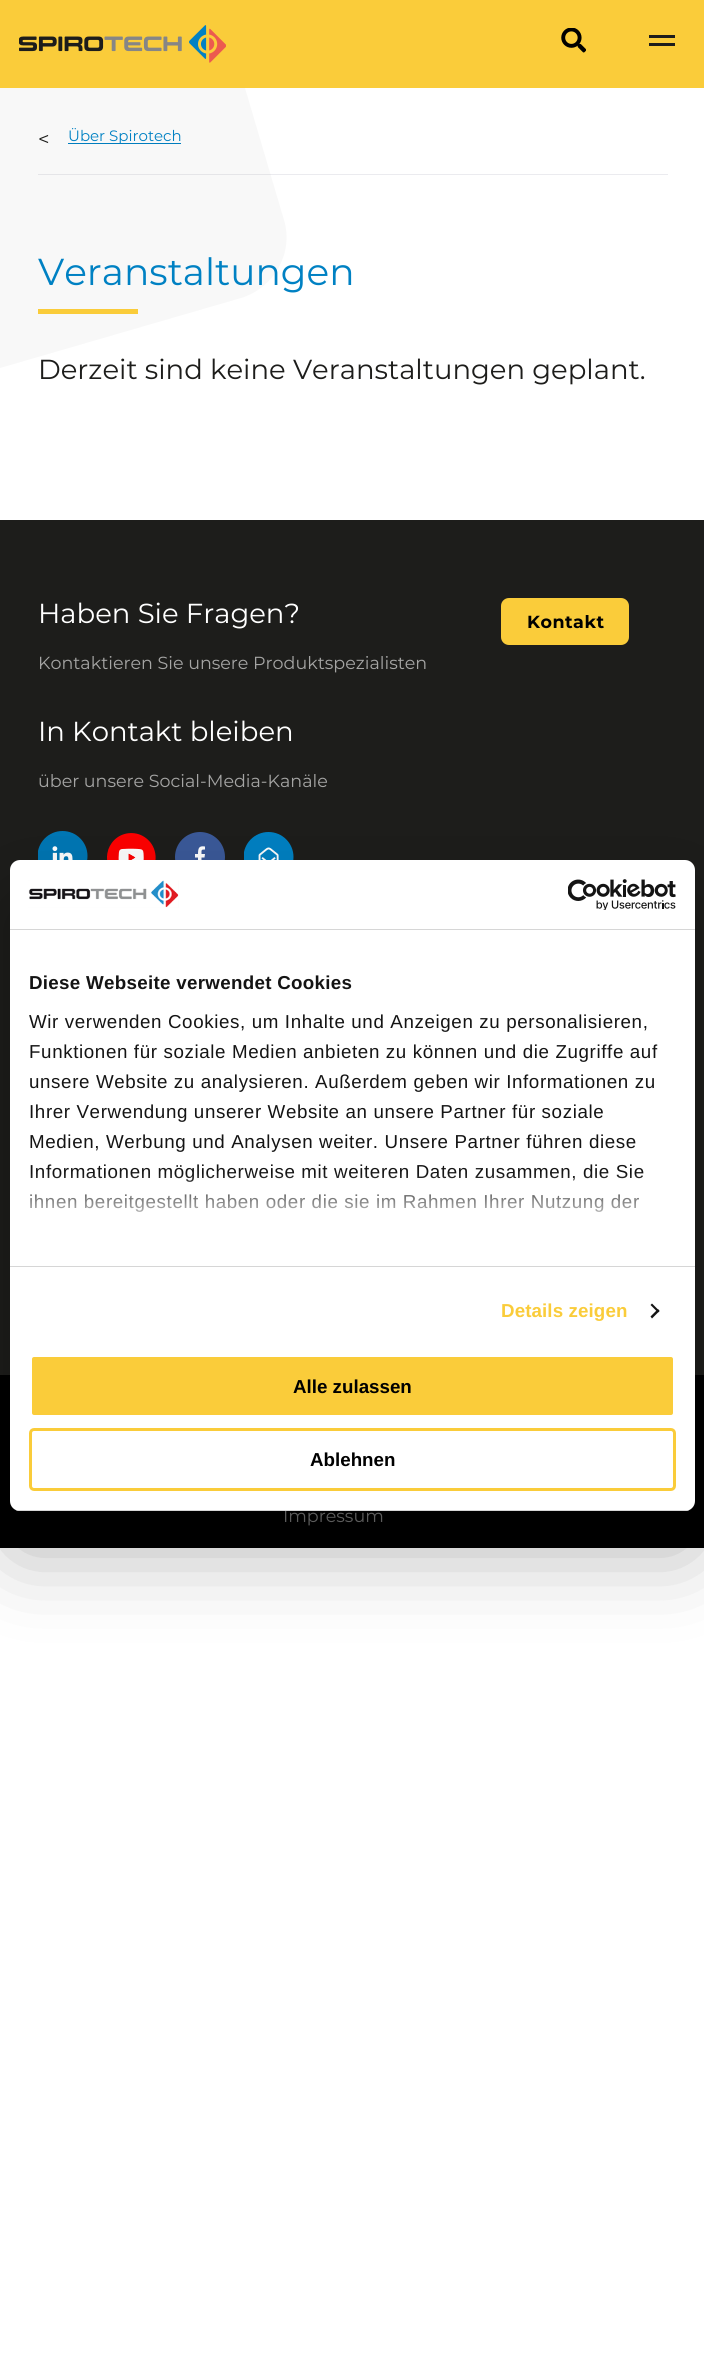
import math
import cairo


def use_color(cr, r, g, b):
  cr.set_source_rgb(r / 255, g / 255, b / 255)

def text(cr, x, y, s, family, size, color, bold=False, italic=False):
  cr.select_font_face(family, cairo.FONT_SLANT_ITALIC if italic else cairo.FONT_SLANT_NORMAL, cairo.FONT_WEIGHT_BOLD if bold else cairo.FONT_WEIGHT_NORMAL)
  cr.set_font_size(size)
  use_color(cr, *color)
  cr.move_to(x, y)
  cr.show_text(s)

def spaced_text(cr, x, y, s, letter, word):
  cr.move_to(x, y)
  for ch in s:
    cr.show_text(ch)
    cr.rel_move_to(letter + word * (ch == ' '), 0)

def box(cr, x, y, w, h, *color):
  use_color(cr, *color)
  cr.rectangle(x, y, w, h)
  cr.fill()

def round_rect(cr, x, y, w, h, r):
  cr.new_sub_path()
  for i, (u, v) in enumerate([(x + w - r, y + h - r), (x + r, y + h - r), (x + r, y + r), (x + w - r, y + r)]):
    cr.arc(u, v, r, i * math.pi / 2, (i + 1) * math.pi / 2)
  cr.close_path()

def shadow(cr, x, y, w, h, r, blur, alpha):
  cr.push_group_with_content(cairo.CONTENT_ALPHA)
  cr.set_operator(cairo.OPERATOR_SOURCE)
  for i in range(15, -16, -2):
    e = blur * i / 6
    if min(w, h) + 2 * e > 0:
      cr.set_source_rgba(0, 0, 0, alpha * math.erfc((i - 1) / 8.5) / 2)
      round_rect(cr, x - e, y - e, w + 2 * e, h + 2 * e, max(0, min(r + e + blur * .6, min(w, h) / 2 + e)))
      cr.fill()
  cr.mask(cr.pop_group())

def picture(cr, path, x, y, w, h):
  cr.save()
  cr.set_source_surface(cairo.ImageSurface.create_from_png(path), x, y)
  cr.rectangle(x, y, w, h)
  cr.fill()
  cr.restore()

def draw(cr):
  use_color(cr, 255, 255, 255)
  cr.paint()
  box(cr, 0, 0, 704, 88, 250, 204, 58)
  picture(cr, "img_01.png", 19, 25, 207, 38)
  box(cr, 649, 35, 26, 3, 29, 29, 27)
  box(cr, 649, 43, 26, 3, 29, 29, 27)
  picture(cr, "img_02.png", 561, 28, 25, 25)
  box(cr, 38, 174, 630, 1, 235, 235, 239)
  box(cr, 68, 143, 113, 1, 0, 129, 195)
  cr.set_source_rgba(0.114, 0.114, 0.106, 0.03)
  cr.new_path()
  cr.move_to(0, 368)
  cr.line_to(241, 298)
  cr.curve_to(274, 288, 294, 253, 284, 220)
  cr.line_to(245, 88)
  cr.line_to(0, 88)
  cr.close_path()
  cr.fill()
  box(cr, 38, 309, 100, 5, 250, 204, 58)
  box(cr, 0, 520, 704, 855, 29, 29, 27)
  use_color(cr, 250, 204, 58)
  round_rect(cr, 501, 598, 128, 47, 8)
  cr.fill()
  picture(cr, "img_03.png", 38, 831, 50, 29)
  picture(cr, "img_04.png", 107, 833, 49, 27)
  use_color(cr, 59, 89, 153)
  cr.arc(200, 857, 25, 0, 2 * math.pi)
  cr.fill()
  use_color(cr, 255, 255, 255)
  cr.new_path()
  cr.move_to(198, 866)
  cr.line_to(198, 857.5)
  cr.line_to(195, 857.5)
  cr.line_to(195, 854)
  cr.line_to(198, 854)
  cr.curve_to(198, 848, 199, 845.5, 205, 846.5)
  cr.line_to(205, 849.5)
  cr.curve_to(201, 849.5, 201.5, 850, 201.5, 854)
  cr.line_to(205, 854)
  cr.line_to(204.5, 857.5)
  cr.line_to(201.5, 857.5)
  cr.line_to(201.5, 866)
  cr.fill()
  picture(cr, "img_05.png", 244, 832, 50, 28)
  box(cr, 0, 1375, 704, 173, 0, 0, 0)
  use_color(cr, 0, 0, 0)
  shadow(cr, 10, 900, 685, 651, 10, 42.5, 0.3)
  text(cr, 38, 146, "<", "Montserrat", 20, (29, 29, 27))
  text(cr, 68, 141, "Über Spirotech", "Montserrat", 15, (0, 129, 195))
  text(cr, 38, 285, "Veranstaltungen", "Montserrat", 37.5, (0, 129, 195))
  text(cr, 38, 379, "Derzeit sind keine Veranstaltungen geplant.", "Montserrat", 27.5, (29, 29, 27))
  text(cr, 38, 623, "Haben Sie Fragen?", "Montserrat", 27.5, (255, 255, 255))
  text(cr, 38, 669, "Kontaktieren Sie unsere Produktspezialisten", "Montserrat", 17.5, (165, 165, 164))
  cr.select_font_face("Montserrat", cairo.FONT_SLANT_NORMAL, cairo.FONT_WEIGHT_BOLD)
  use_color(cr, 0, 0, 0)
  spaced_text(cr, 527, 628, "Kontakt", 0.5, 0)
  text(cr, 38, 741, "In Kontakt bleiben", "Montserrat", 27.5, (255, 255, 255))
  text(cr, 38, 787, "über unsere Social-Media-Kanäle", "Montserrat", 17.5, (165, 165, 164))
  text(cr, 283, 1522, "Impressum", "Montserrat", 17.5, (92, 92, 92))
  use_color(cr, 255, 255, 255)
  round_rect(cr, 10, 860, 685, 651, 10)
  cr.fill()
  box(cr, 10, 929, 685, 1, 214, 214, 214)
  picture(cr, "img_06.png", 28, 880, 151, 28)
  picture(cr, "img_07.png", 568, 879, 108, 31)
  box(cr, 10, 1266, 685, 1, 214, 214, 214)
  cr.select_font_face("Liberation Sans", cairo.FONT_SLANT_NORMAL, cairo.FONT_WEIGHT_BOLD)
  cr.set_font_size(18.75)
  use_color(cr, 20, 20, 20)
  spaced_text(cr, 29, 989, "Diese Webseite verwendet Cookies", 0.3, 0)
  cr.select_font_face("Liberation Sans")
  spaced_text(cr, 29, 1028, "Wir verwenden Cookies, um Inhalte und Anzeigen zu personalisieren,", 0.62, 0)
  spaced_text(cr, 29, 1058, "Funktionen für soziale Medien anbieten zu können und die Zugriffe auf", 0.62, 0)
  spaced_text(cr, 29, 1088, "unsere Website zu analysieren. Außerdem geben wir Informationen zu", 0.62, 0)
  spaced_text(cr, 29, 1118, "Ihrer Verwendung unserer Website an unsere Partner für soziale", 0.62, 0)
  spaced_text(cr, 29, 1148, "Medien, Werbung und Analysen weiter. Unsere Partner führen diese", 0.62, 0)
  spaced_text(cr, 29, 1178, "Informationen möglicherweise mit weiteren Daten zusammen, die Sie", 0.62, 0)
  spaced_text(cr, 29, 1208, "ihnen bereitgestellt haben oder die sie im Rahmen Ihrer Nutzung der", 0.62, 0)
  gradient = cairo.LinearGradient(344, 1267, 344, 1173)
  gradient.add_color_stop_rgba(0, 1, 1, 1, 1)
  gradient.add_color_stop_rgba(0.5, 1, 1, 1, 0.8)
  gradient.add_color_stop_rgba(1, 1, 1, 1, 0)
  cr.set_source(gradient)
  cr.rectangle(30, 1174, 613, 38)
  cr.fill()
  cr.select_font_face("Liberation Sans", cairo.FONT_SLANT_NORMAL, cairo.FONT_WEIGHT_BOLD)
  use_color(cr, 250, 204, 58)
  spaced_text(cr, 501, 1317, "Details zeigen", 0.1, 0)
  use_color(cr, 20, 20, 20)
  cr.new_path()
  cr.move_to(652, 1303.5)
  cr.line_to(659.5, 1311)
  cr.line_to(658, 1312.5)
  cr.line_to(650.5, 1305)
  cr.close_path()
  cr.fill()
  cr.new_path()
  cr.move_to(658, 1309)
  cr.line_to(659.5, 1311)
  cr.line_to(652, 1318.5)
  cr.line_to(650.5, 1316.5)
  cr.close_path()
  cr.fill()
  cr.save()
  round_rect(cr, 10, 860, 685, 651, 10)
  cr.clip()
  box(cr, 10, 1510, 685, 1, 214, 214, 214)
  cr.restore()
  use_color(cr, 250, 204, 58)
  round_rect(cr, 30.5, 1355.5, 644, 61, 3.5)
  cr.fill_preserve()
  use_color(cr, 255, 255, 255)
  cr.set_line_width(3)
  cr.stroke()
  text(cr, 293, 1393, "Alle zulassen", "Liberation Sans", 18.75, (0, 0, 0), bold=True)
  round_rect(cr, 30.5, 1429.5, 644, 60, 3.5)
  use_color(cr, 250, 204, 58)
  cr.stroke()
  text(cr, 310, 1466, "Ablehnen", "Liberation Sans", 18.75, (0, 0, 0), bold=True)


surface = cairo.ImageSurface(cairo.FORMAT_RGB24, 704, 2371)
cr = cairo.Context(surface)
options = cairo.FontOptions()
options.set_hint_metrics(cairo.HINT_METRICS_OFF)
options.set_hint_style(cairo.HINT_STYLE_NONE)
cr.set_font_options(options)
cr.set_miter_limit(4)
draw(cr)
surface.write_to_png("out.png")
